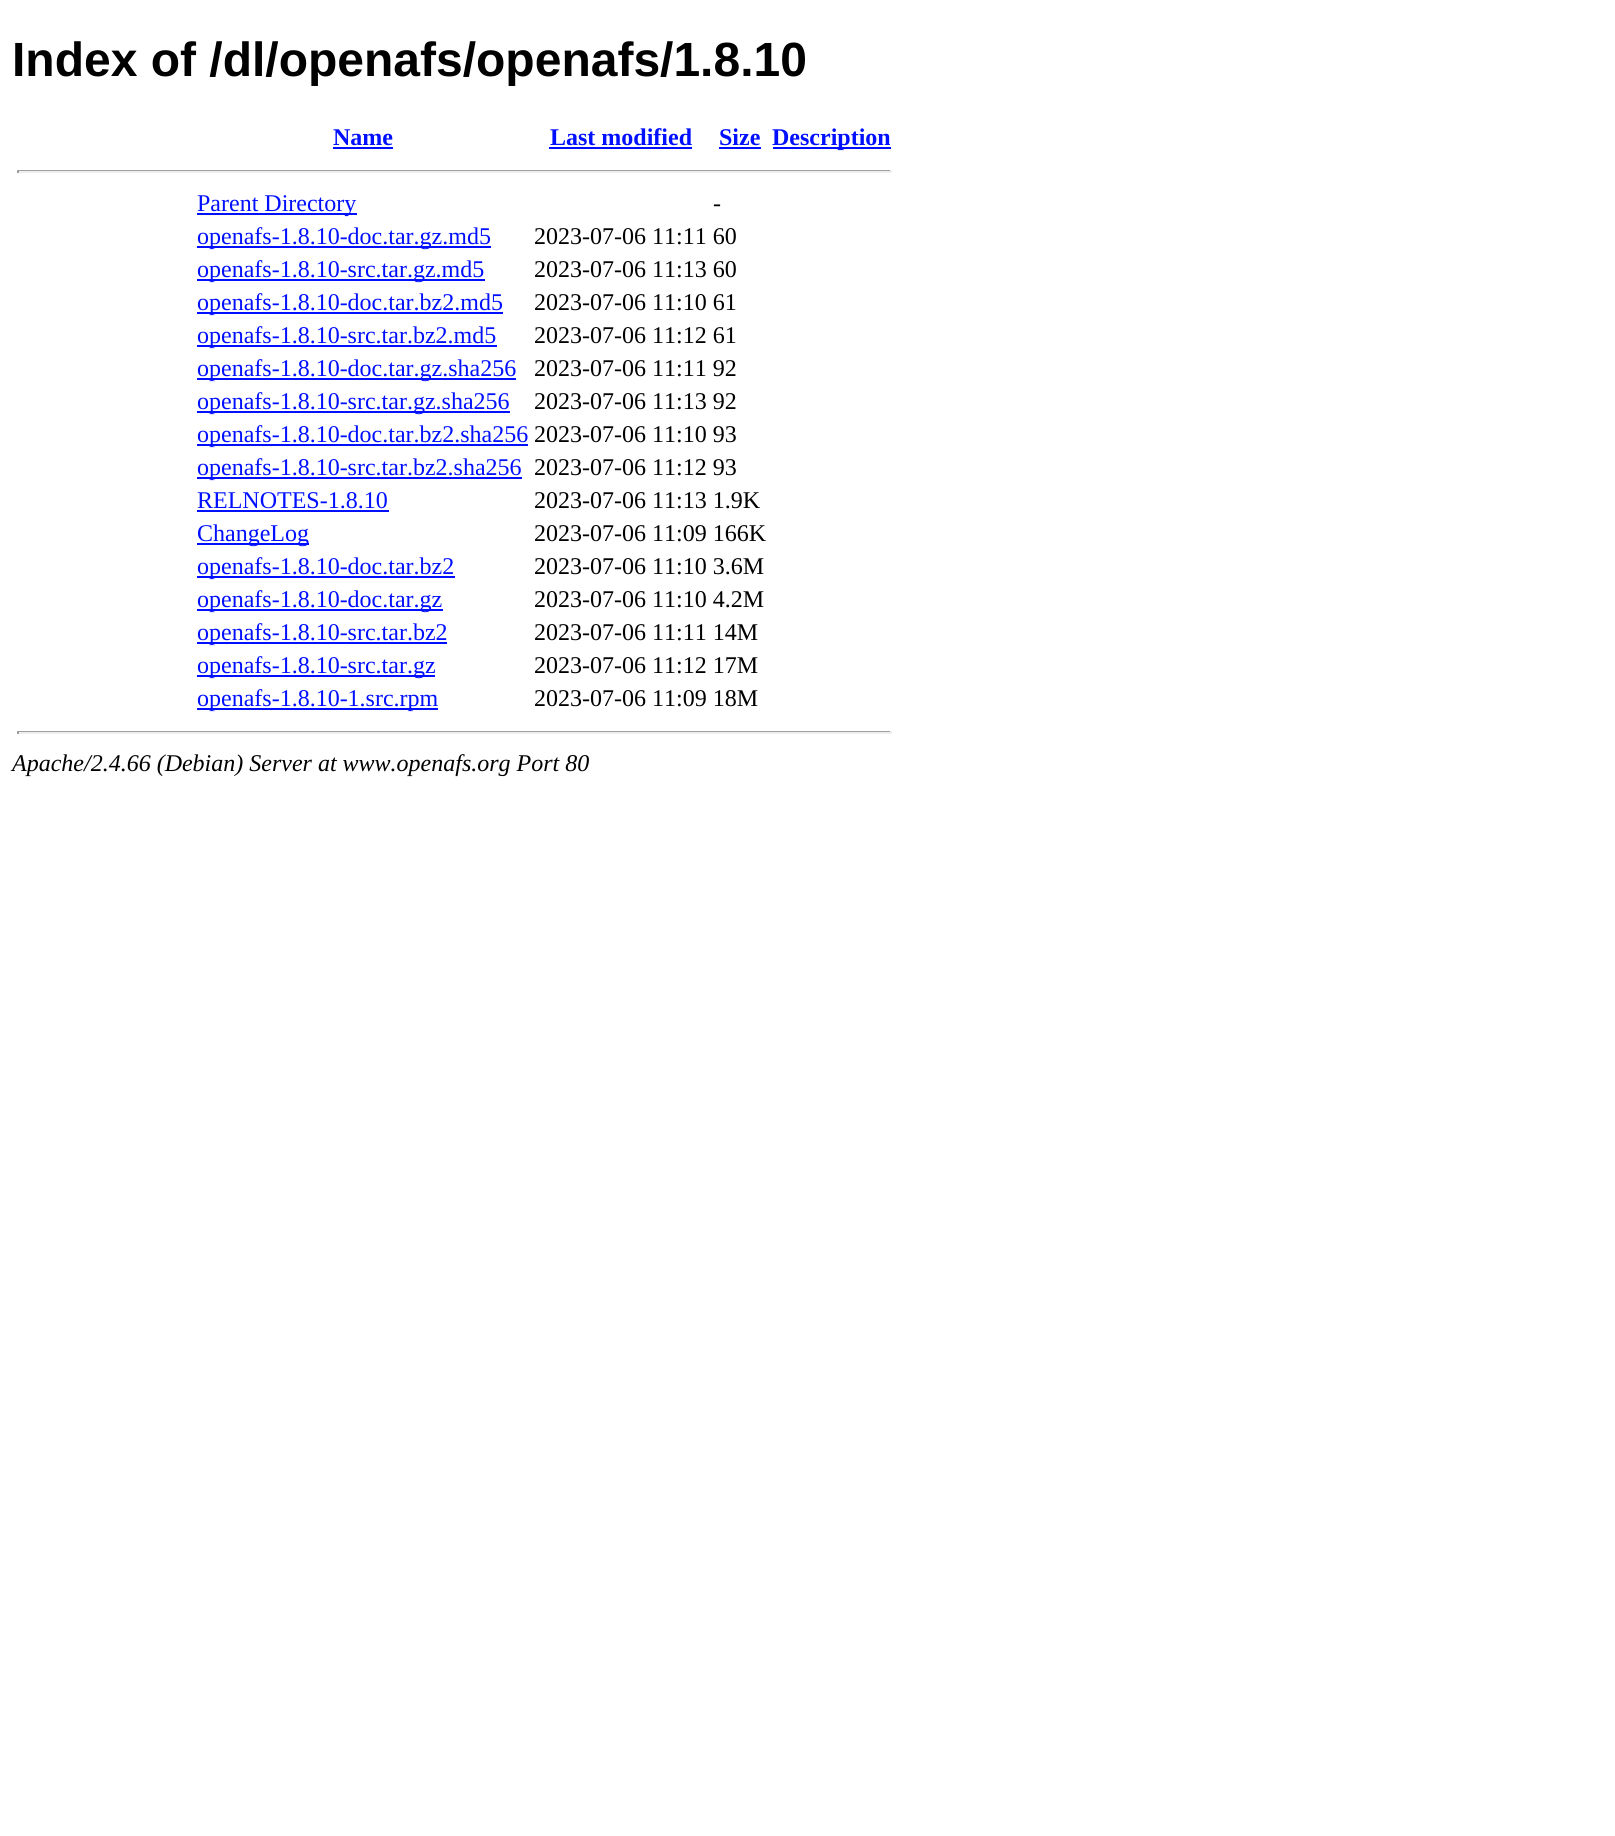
import math
import cairo


def use_color(cr, r, g, b):
  cr.set_source_rgb(r / 255, g / 255, b / 255)

def text(cr, x, y, s, family, size, color, bold=False, italic=False):
  cr.select_font_face(family, cairo.FONT_SLANT_ITALIC if italic else cairo.FONT_SLANT_NORMAL, cairo.FONT_WEIGHT_BOLD if bold else cairo.FONT_WEIGHT_NORMAL)
  cr.set_font_size(size)
  use_color(cr, *color)
  cr.move_to(x, y)
  cr.show_text(s)

def box(cr, x, y, w, h, *color):
  use_color(cr, *color)
  cr.rectangle(x, y, w, h)
  cr.fill()

def draw(cr):
  use_color(cr, 255, 255, 255)
  cr.paint()
  box(cr, 333, 147, 60, 2, 0, 15, 255)
  box(cr, 549, 147, 143, 2, 0, 15, 255)
  box(cr, 719, 147, 42, 2, 0, 15, 255)
  box(cr, 773, 147, 118, 2, 0, 15, 255)
  box(cr, 17, 170, 874, 1, 159, 159, 159)
  box(cr, 890, 170, 2, 3, 238, 238, 238)
  box(cr, 17, 171, 874, 2, 238, 238, 238)
  box(cr, 17, 170, 2, 3, 159, 159, 159)
  box(cr, 197, 213, 160, 2, 0, 15, 255)
  box(cr, 197, 246, 294, 2, 0, 15, 255)
  box(cr, 197, 279, 288, 2, 0, 15, 255)
  box(cr, 197, 312, 306, 2, 0, 15, 255)
  box(cr, 197, 345, 300, 2, 0, 15, 255)
  box(cr, 197, 378, 319, 2, 0, 15, 255)
  box(cr, 197, 411, 313, 2, 0, 15, 255)
  box(cr, 197, 444, 331, 2, 0, 15, 255)
  box(cr, 197, 477, 325, 2, 0, 15, 255)
  box(cr, 197, 510, 192, 2, 0, 15, 255)
  box(cr, 197, 543, 112, 2, 0, 15, 255)
  box(cr, 197, 576, 258, 2, 0, 15, 255)
  box(cr, 197, 609, 246, 2, 0, 15, 255)
  box(cr, 197, 642, 250, 2, 0, 15, 255)
  box(cr, 197, 675, 238, 2, 0, 15, 255)
  box(cr, 197, 708, 241, 2, 0, 15, 255)
  box(cr, 17, 731, 874, 1, 159, 159, 159)
  box(cr, 890, 731, 2, 3, 238, 238, 238)
  box(cr, 17, 732, 874, 2, 238, 238, 238)
  box(cr, 17, 731, 2, 3, 159, 159, 159)
  text(cr, 12, 76, "Index of /dl/openafs/openafs/1.8.10", "Liberation Sans", 48, (0, 0, 0), bold=True)
  text(cr, 333, 145, "Name", "Liberation Serif", 24, (0, 15, 255), bold=True)
  text(cr, 550, 145, "Last modified", "Liberation Serif", 24, (0, 15, 255), bold=True)
  text(cr, 719, 145, "Size", "Liberation Serif", 24, (0, 15, 255), bold=True)
  text(cr, 772, 145, "Description", "Liberation Serif", 24, (0, 15, 255), bold=True)
  text(cr, 197, 211, "Parent Directory", "Liberation Serif", 24, (0, 15, 255))
  text(cr, 713, 211, "-", "Liberation Serif", 24, (0, 0, 0))
  text(cr, 197, 244, "openafs-1.8.10-doc.tar.gz.md5", "Liberation Serif", 24, (0, 15, 255))
  text(cr, 534, 244, "2023-07-06 11:11 60", "Liberation Serif", 24, (0, 0, 0))
  text(cr, 197, 277, "openafs-1.8.10-src.tar.gz.md5", "Liberation Serif", 24, (0, 15, 255))
  text(cr, 534, 277, "2023-07-06 11:13 60", "Liberation Serif", 24, (0, 0, 0))
  text(cr, 197, 310, "openafs-1.8.10-doc.tar.bz2.md5", "Liberation Serif", 24, (0, 15, 255))
  text(cr, 534, 310, "2023-07-06 11:10 61", "Liberation Serif", 24, (0, 0, 0))
  text(cr, 197, 343, "openafs-1.8.10-src.tar.bz2.md5", "Liberation Serif", 24, (0, 15, 255))
  text(cr, 534, 343, "2023-07-06 11:12 61", "Liberation Serif", 24, (0, 0, 0))
  text(cr, 197, 376, "openafs-1.8.10-doc.tar.gz.sha256", "Liberation Serif", 24, (0, 15, 255))
  text(cr, 534, 376, "2023-07-06 11:11 92", "Liberation Serif", 24, (0, 0, 0))
  text(cr, 197, 409, "openafs-1.8.10-src.tar.gz.sha256", "Liberation Serif", 24, (0, 15, 255))
  text(cr, 534, 409, "2023-07-06 11:13 92", "Liberation Serif", 24, (0, 0, 0))
  text(cr, 197, 442, "openafs-1.8.10-doc.tar.bz2.sha256", "Liberation Serif", 24, (0, 15, 255))
  text(cr, 534, 442, "2023-07-06 11:10 93", "Liberation Serif", 24, (0, 0, 0))
  text(cr, 197, 475, "openafs-1.8.10-src.tar.bz2.sha256", "Liberation Serif", 24, (0, 15, 255))
  text(cr, 534, 475, "2023-07-06 11:12 93", "Liberation Serif", 24, (0, 0, 0))
  text(cr, 197, 508, "RELNOTES-1.8.10", "Liberation Serif", 24, (0, 15, 255))
  text(cr, 534, 508, "2023-07-06 11:13 1.9K", "Liberation Serif", 24, (0, 0, 0))
  text(cr, 197, 541, "ChangeLog", "Liberation Serif", 24, (0, 15, 255))
  text(cr, 534, 541, "2023-07-06 11:09 166K", "Liberation Serif", 24, (0, 0, 0))
  text(cr, 197, 574, "openafs-1.8.10-doc.tar.bz2", "Liberation Serif", 24, (0, 15, 255))
  text(cr, 534, 574, "2023-07-06 11:10 3.6M", "Liberation Serif", 24, (0, 0, 0))
  text(cr, 197, 607, "openafs-1.8.10-doc.tar.gz", "Liberation Serif", 24, (0, 15, 255))
  text(cr, 534, 607, "2023-07-06 11:10 4.2M", "Liberation Serif", 24, (0, 0, 0))
  text(cr, 197, 640, "openafs-1.8.10-src.tar.bz2", "Liberation Serif", 24, (0, 15, 255))
  text(cr, 534, 640, "2023-07-06 11:11 14M", "Liberation Serif", 24, (0, 0, 0))
  text(cr, 197, 673, "openafs-1.8.10-src.tar.gz", "Liberation Serif", 24, (0, 15, 255))
  text(cr, 534, 673, "2023-07-06 11:12 17M", "Liberation Serif", 24, (0, 0, 0))
  text(cr, 197, 706, "openafs-1.8.10-1.src.rpm", "Liberation Serif", 24, (0, 15, 255))
  text(cr, 534, 706, "2023-07-06 11:09 18M", "Liberation Serif", 24, (0, 0, 0))
  text(cr, 12, 771, "Apache/2.4.66 (Debian) Server at www.openafs.org Port 80", "Liberation Serif", 24, (0, 0, 0), italic=True)


surface = cairo.ImageSurface(cairo.FORMAT_RGB24, 1615, 1836)
cr = cairo.Context(surface)
options = cairo.FontOptions()
options.set_hint_metrics(cairo.HINT_METRICS_OFF)
options.set_hint_style(cairo.HINT_STYLE_NONE)
cr.set_font_options(options)
cr.set_miter_limit(4)
draw(cr)
surface.write_to_png("out.png")
